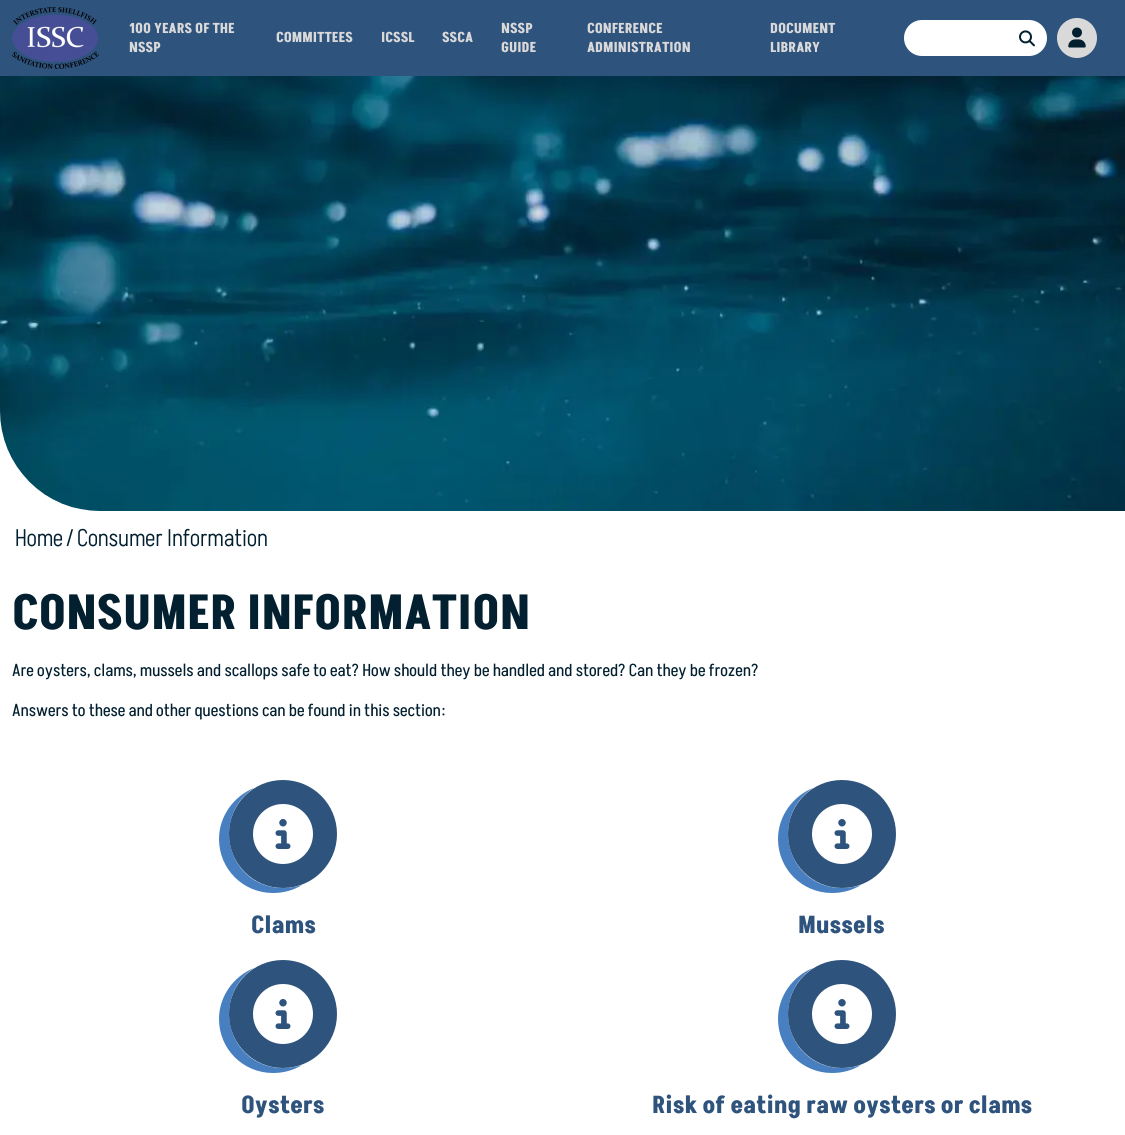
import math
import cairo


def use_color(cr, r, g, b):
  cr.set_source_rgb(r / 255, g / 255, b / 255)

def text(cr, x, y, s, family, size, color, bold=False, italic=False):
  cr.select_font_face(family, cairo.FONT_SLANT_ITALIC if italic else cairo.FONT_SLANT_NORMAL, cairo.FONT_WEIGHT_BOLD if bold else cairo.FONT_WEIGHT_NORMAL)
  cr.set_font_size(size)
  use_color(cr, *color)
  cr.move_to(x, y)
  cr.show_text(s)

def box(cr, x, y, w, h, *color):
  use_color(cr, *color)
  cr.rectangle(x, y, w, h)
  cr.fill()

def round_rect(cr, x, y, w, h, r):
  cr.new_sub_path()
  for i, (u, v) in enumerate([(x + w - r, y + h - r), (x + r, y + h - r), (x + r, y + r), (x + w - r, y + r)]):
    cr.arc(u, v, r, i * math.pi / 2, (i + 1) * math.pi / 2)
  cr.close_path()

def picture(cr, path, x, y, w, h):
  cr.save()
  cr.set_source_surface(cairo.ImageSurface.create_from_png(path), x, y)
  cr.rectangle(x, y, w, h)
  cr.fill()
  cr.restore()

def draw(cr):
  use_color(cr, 255, 255, 255)
  cr.paint()
  box(cr, 0, 0, 1125, 76, 46, 83, 125)
  picture(cr, "img_01.png", 12, 7, 87, 62)
  use_color(cr, 255, 255, 255)
  round_rect(cr, 904, 20, 143, 36, 18)
  cr.fill()
  picture(cr, "img_02.png", 1019, 30, 16, 17)
  use_color(cr, 217, 217, 217)
  cr.arc(1077, 38, 20, 0, 2 * math.pi)
  cr.fill()
  picture(cr, "img_03.png", 1068, 27, 18, 21)
  picture(cr, "img_04.png", 0, 76, 1125, 435)
  use_color(cr, 71, 127, 192)
  cr.new_path()
  cr.move_to(254, 788)
  cr.curve_to(234, 796, 219, 816, 219, 839)
  cr.curve_to(219, 869, 243, 893, 273, 893)
  cr.curve_to(284, 893, 294, 890, 302, 885)
  cr.curve_to(292, 888, 282, 889, 272, 887)
  cr.curve_to(224, 877, 214, 814, 254, 788)
  cr.close_path()
  cr.fill()
  use_color(cr, 46, 83, 125)
  cr.arc(283, 834, 54, 0, 2 * math.pi)
  cr.fill()
  picture(cr, "img_05.png", 253, 804, 60, 60)
  use_color(cr, 71, 127, 192)
  cr.new_path()
  cr.move_to(813, 788)
  cr.curve_to(793, 796, 778, 816, 778, 839)
  cr.curve_to(778, 869, 802, 893, 832, 893)
  cr.curve_to(843, 893, 853, 890, 861, 885)
  cr.curve_to(851, 888, 841, 889, 831, 887)
  cr.curve_to(783, 877, 773, 814, 813, 788)
  cr.close_path()
  cr.fill()
  use_color(cr, 46, 83, 125)
  cr.arc(842, 834, 54, 0, 2 * math.pi)
  cr.fill()
  picture(cr, "img_05.png", 812, 804, 60, 60)
  use_color(cr, 71, 127, 192)
  cr.new_path()
  cr.move_to(254, 968)
  cr.curve_to(234, 976, 219, 996, 219, 1019)
  cr.curve_to(219, 1049, 243, 1073, 273, 1073)
  cr.curve_to(284, 1073, 294, 1070, 302, 1065)
  cr.curve_to(292, 1068, 282, 1069, 272, 1067)
  cr.curve_to(224, 1057, 214, 994, 254, 968)
  cr.close_path()
  cr.fill()
  use_color(cr, 46, 83, 125)
  cr.arc(283, 1014, 54, 0, 2 * math.pi)
  cr.fill()
  picture(cr, "img_05.png", 253, 984, 60, 60)
  use_color(cr, 71, 127, 192)
  cr.new_path()
  cr.move_to(813, 968)
  cr.curve_to(793, 976, 778, 996, 778, 1019)
  cr.curve_to(778, 1049, 802, 1073, 832, 1073)
  cr.curve_to(843, 1073, 853, 1070, 861, 1065)
  cr.curve_to(851, 1068, 841, 1069, 831, 1067)
  cr.curve_to(783, 1057, 773, 994, 813, 968)
  cr.close_path()
  cr.fill()
  use_color(cr, 46, 83, 125)
  cr.arc(842, 1014, 54, 0, 2 * math.pi)
  cr.fill()
  picture(cr, "img_05.png", 812, 984, 60, 60)
  text(cr, 129, 33, "100 YEARS OF THE", "Akshar", 14, (217, 217, 217), bold=True)
  text(cr, 129, 52, "NSSP", "Akshar", 14, (217, 217, 217), bold=True)
  text(cr, 276, 42, "COMMITTEES", "Akshar", 14, (217, 217, 217), bold=True)
  text(cr, 381, 42, "ICSSL", "Akshar", 14, (217, 217, 217), bold=True)
  text(cr, 442, 42, "SSCA", "Akshar", 14, (217, 217, 217), bold=True)
  text(cr, 501, 33, "NSSP", "Akshar", 14, (217, 217, 217), bold=True)
  text(cr, 501, 52, "GUIDE", "Akshar", 14, (217, 217, 217), bold=True)
  text(cr, 587, 33, "CONFERENCE", "Akshar", 14, (217, 217, 217), bold=True)
  text(cr, 587, 52, "ADMINISTRATION", "Akshar", 14, (217, 217, 217), bold=True)
  text(cr, 770, 33, "DOCUMENT", "Akshar", 14, (217, 217, 217), bold=True)
  text(cr, 770, 52, "LIBRARY", "Akshar", 14, (217, 217, 217), bold=True)
  text(cr, 15, 546, "Home", "Akshar Light", 24, (3, 32, 48))
  text(cr, 66, 546, "/", "Akshar Light", 24, (3, 32, 48))
  text(cr, 77, 546, "Consumer Information", "Akshar Light", 24, (3, 32, 48))
  text(cr, 12, 629, "CONSUMER INFORMATION", "Akshar", 48, (3, 32, 48), bold=True)
  text(cr, 12, 676, "Are oysters, clams, mussels and scallops safe to eat? How should they be handled and stored? Can they be frozen?", "Akshar", 17.15, (3, 32, 48))
  text(cr, 12, 716, "Answers to these and other questions can be found in this section:", "Akshar", 17.15, (3, 32, 48))
  text(cr, 251, 933, "Clams", "Akshar", 24, (46, 83, 125), bold=True)
  text(cr, 798, 933, "Mussels", "Akshar", 24, (46, 83, 125), bold=True)
  text(cr, 241, 1113, "Oysters", "Akshar", 24, (46, 83, 125), bold=True)
  text(cr, 652, 1113, "Risk of eating raw oysters or clams", "Akshar", 24, (46, 83, 125), bold=True)


surface = cairo.ImageSurface(cairo.FORMAT_RGB24, 1125, 1135)
cr = cairo.Context(surface)
options = cairo.FontOptions()
options.set_hint_metrics(cairo.HINT_METRICS_OFF)
options.set_hint_style(cairo.HINT_STYLE_NONE)
cr.set_font_options(options)
cr.set_miter_limit(4)
draw(cr)
surface.write_to_png("out.png")
